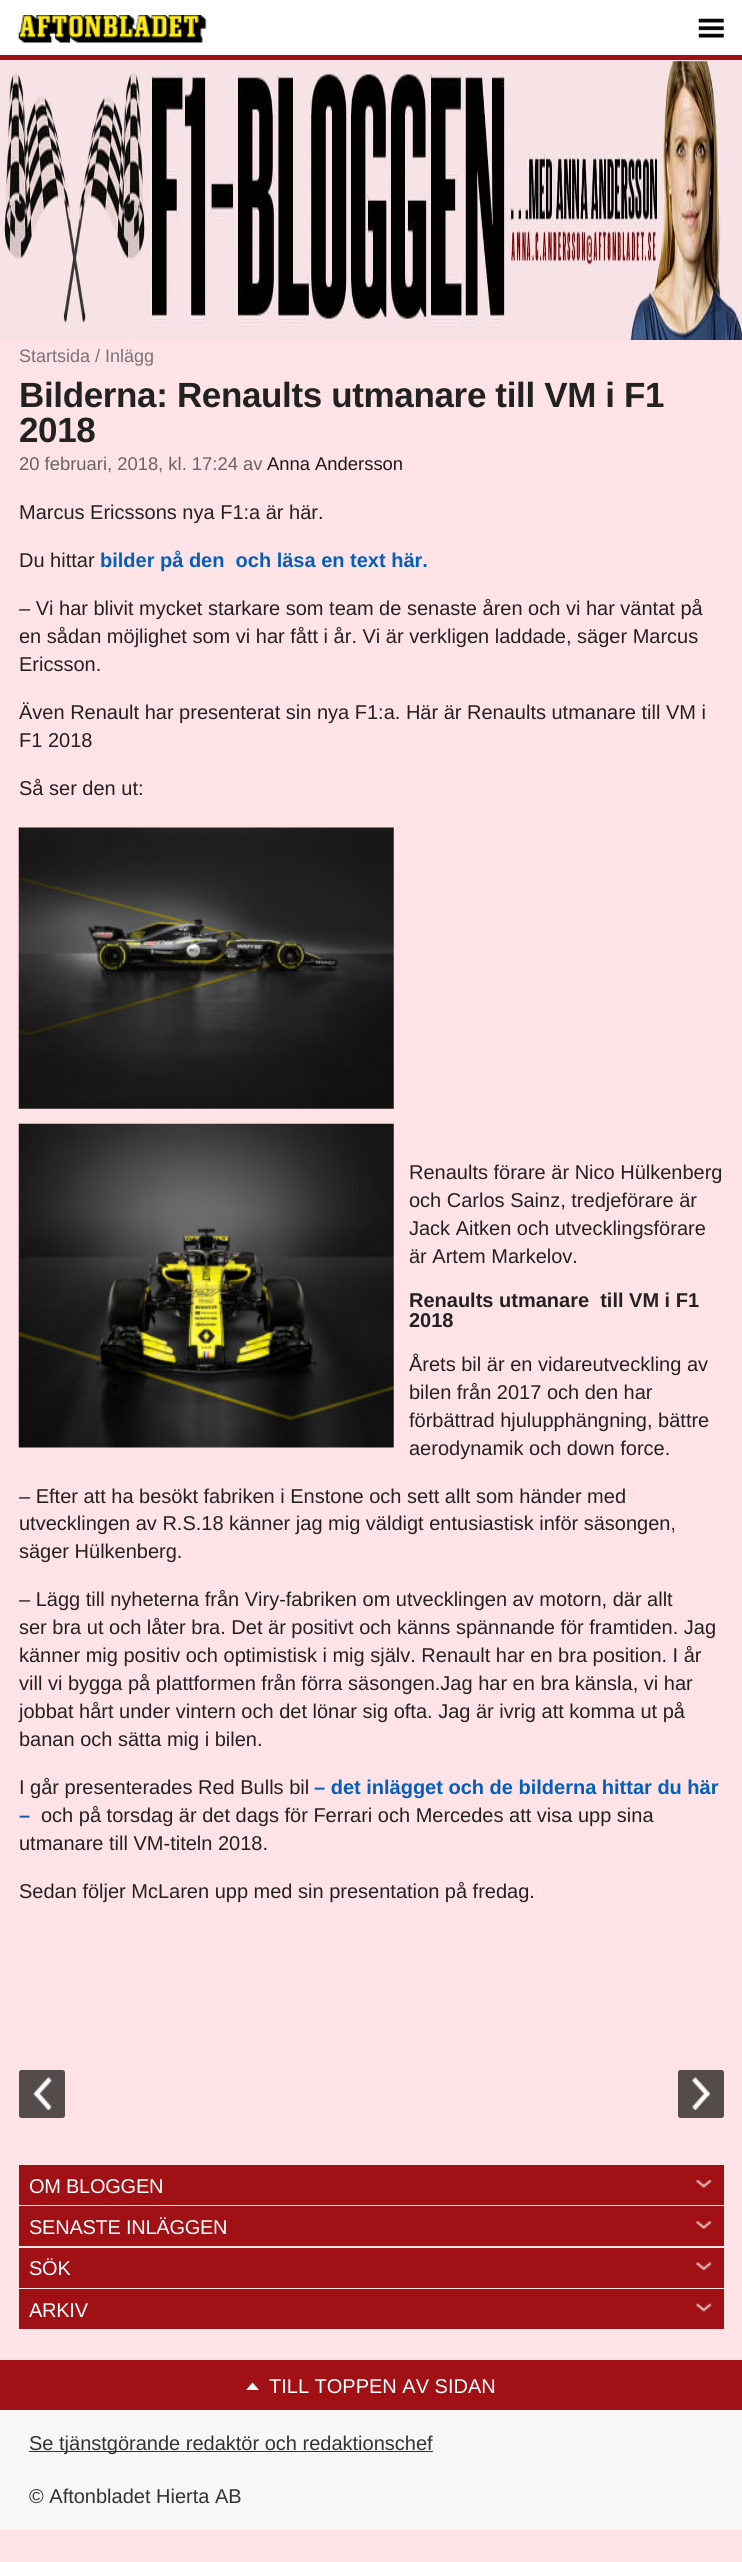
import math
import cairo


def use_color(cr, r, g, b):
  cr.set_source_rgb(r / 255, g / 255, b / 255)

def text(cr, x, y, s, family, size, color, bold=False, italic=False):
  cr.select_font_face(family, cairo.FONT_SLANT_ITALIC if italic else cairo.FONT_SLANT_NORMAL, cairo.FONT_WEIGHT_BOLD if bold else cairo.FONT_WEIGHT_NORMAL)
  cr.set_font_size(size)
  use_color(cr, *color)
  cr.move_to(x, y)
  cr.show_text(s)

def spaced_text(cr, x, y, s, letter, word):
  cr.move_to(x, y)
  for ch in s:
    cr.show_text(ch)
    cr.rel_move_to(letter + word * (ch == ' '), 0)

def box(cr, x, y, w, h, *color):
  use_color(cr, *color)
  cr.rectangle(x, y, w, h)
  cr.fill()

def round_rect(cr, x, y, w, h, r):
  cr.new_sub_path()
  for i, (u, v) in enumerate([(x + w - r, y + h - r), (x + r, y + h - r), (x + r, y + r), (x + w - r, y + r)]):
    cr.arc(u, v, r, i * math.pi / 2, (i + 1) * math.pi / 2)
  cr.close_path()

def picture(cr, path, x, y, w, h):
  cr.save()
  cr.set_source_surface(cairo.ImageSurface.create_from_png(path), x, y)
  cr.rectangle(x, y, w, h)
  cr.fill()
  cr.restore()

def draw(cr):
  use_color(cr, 255, 227, 230)
  cr.paint()
  box(cr, 0, 0, 742, 55, 255, 255, 255)
  box(cr, 0, 55, 742, 5, 161, 16, 20)
  picture(cr, "img_01.png", 18, 15, 189, 28)
  picture(cr, "img_02.png", 698, 18, 26, 20)
  picture(cr, "img_03.png", 0, 61, 742, 279)
  picture(cr, "img_04.png", 18, 827, 376, 282)
  picture(cr, "img_05.png", 18, 1123, 376, 325)
  use_color(cr, 84, 75, 75)
  round_rect(cr, 19, 2070, 46, 48, 2.5)
  cr.fill()
  picture(cr, "img_06.png", 33, 2077, 19, 33)
  round_rect(cr, 678, 2070, 46, 48, 2.5)
  cr.fill()
  picture(cr, "img_07.png", 692, 2077, 18, 33)
  box(cr, 19, 2165, 705, 40, 161, 16, 20)
  picture(cr, "img_08.png", 696, 2180, 16, 8)
  box(cr, 19, 2206, 705, 40, 161, 16, 20)
  picture(cr, "img_09.png", 696, 2221, 16, 8)
  box(cr, 19, 2248, 705, 40, 161, 16, 20)
  picture(cr, "img_10.png", 696, 2262, 16, 8)
  box(cr, 19, 2289, 705, 40, 161, 16, 20)
  picture(cr, "img_11.png", 696, 2303, 16, 9)
  box(cr, 0, 2360, 742, 50, 161, 16, 20)
  use_color(cr, 252, 252, 252)
  cr.new_path()
  cr.move_to(259, 2390)
  cr.line_to(246, 2390)
  cr.line_to(252.5, 2382.5)
  cr.close_path()
  cr.fill()
  box(cr, 0, 2410, 742, 120, 247, 247, 247)
  box(cr, 29, 2451, 404, 1, 51, 51, 51)
  text(cr, 19, 362, "Startsida / Inlägg", "Liberation Sans", 18, (117, 117, 117))
  cr.select_font_face("Liberation Sans", cairo.FONT_SLANT_NORMAL, cairo.FONT_WEIGHT_BOLD)
  cr.set_font_size(35)
  use_color(cr, 34, 34, 34)
  spaced_text(cr, 19, 407, "Bilderna: Renaults utmanare till VM i F1", -0.35, 0)
  spaced_text(cr, 19, 442, "2018", -0.35, 0)
  text(cr, 19, 470, "20 februari, 2018, kl. 17:24 av", "Liberation Sans", 18.4, (102, 102, 102))
  text(cr, 267, 470, "Anna Andersson", "Liberation Sans", 18.4, (26, 26, 26))
  text(cr, 19, 519, "Marcus Ericssons nya F1:a är här.", "Liberation Sans", 20, (34, 34, 34))
  text(cr, 19, 567, "Du hittar", "Liberation Sans", 20, (34, 34, 34))
  text(cr, 100, 567, "bilder på den  och läsa en text här.", "Liberation Sans", 20, (2, 95, 189), bold=True)
  text(cr, 19, 615, "– Vi har blivit mycket starkare som team de senaste åren och vi har väntat på", "Liberation Sans", 20, (34, 34, 34))
  text(cr, 19, 643, "en sådan möjlighet som vi har fått i år. Vi är verkligen laddade, säger Marcus", "Liberation Sans", 20, (34, 34, 34))
  text(cr, 19, 671, "Ericsson.", "Liberation Sans", 20, (34, 34, 34))
  text(cr, 19, 719, "Även Renault har presenterat sin nya F1:a. Här är Renaults utmanare till VM i", "Liberation Sans", 20, (34, 34, 34))
  text(cr, 19, 747, "F1 2018", "Liberation Sans", 20, (34, 34, 34))
  text(cr, 19, 795, "Så ser den ut:", "Liberation Sans", 20, (34, 34, 34))
  text(cr, 409, 1179, "Renaults förare är Nico Hülkenberg", "Liberation Sans", 20, (34, 34, 34))
  text(cr, 409, 1207, "och Carlos Sainz, tredjeförare är", "Liberation Sans", 20, (34, 34, 34))
  text(cr, 409, 1235, "Jack Aitken och utvecklingsförare", "Liberation Sans", 20, (34, 34, 34))
  text(cr, 409, 1263, "är Artem Markelov.", "Liberation Sans", 20, (34, 34, 34))
  text(cr, 409, 1307, "Renaults utmanare  till VM i F1", "Liberation Sans", 20, (34, 34, 34), bold=True)
  text(cr, 409, 1327, "2018", "Liberation Sans", 20, (34, 34, 34), bold=True)
  text(cr, 409, 1371, "Årets bil är en vidareutveckling av", "Liberation Sans", 20, (34, 34, 34))
  text(cr, 409, 1399, "bilen från 2017 och den har", "Liberation Sans", 20, (34, 34, 34))
  text(cr, 409, 1427, "förbättrad hjulupphängning, bättre", "Liberation Sans", 20, (34, 34, 34))
  text(cr, 409, 1455, "aerodynamik och down force.", "Liberation Sans", 20, (34, 34, 34))
  text(cr, 19, 1503, "– Efter att ha besökt fabriken i Enstone och sett allt som händer med", "Liberation Sans", 20, (34, 34, 34))
  text(cr, 19, 1530, "utvecklingen av R.S.18 känner jag mig väldigt entusiastisk inför säsongen,", "Liberation Sans", 20, (34, 34, 34))
  text(cr, 19, 1558, "säger Hülkenberg.", "Liberation Sans", 20, (34, 34, 34))
  text(cr, 19, 1606, "– Lägg till nyheterna från Viry-fabriken om utvecklingen av motorn, där allt", "Liberation Sans", 20, (34, 34, 34))
  text(cr, 19, 1634, "ser bra ut och låter bra. Det är positivt och känns spännande för framtiden. Jag", "Liberation Sans", 20, (34, 34, 34))
  text(cr, 19, 1662, "känner mig positiv och optimistisk i mig själv. Renault har en bra position. I år", "Liberation Sans", 20, (34, 34, 34))
  text(cr, 19, 1690, "vill vi bygga på plattformen från förra säsongen.Jag har en bra känsla, vi har", "Liberation Sans", 20, (34, 34, 34))
  text(cr, 19, 1718, "jobbat hårt under vintern och det lönar sig ofta. Jag är ivrig att komma ut på", "Liberation Sans", 20, (34, 34, 34))
  text(cr, 19, 1746, "banan och sätta mig i bilen.", "Liberation Sans", 20, (34, 34, 34))
  text(cr, 19, 1794, "I går presenterades Red Bulls bil", "Liberation Sans", 20, (34, 34, 34))
  text(cr, 314, 1794, "– det inlägget och de bilderna hittar du här", "Liberation Sans", 20, (2, 95, 189), bold=True)
  text(cr, 19, 1822, "–", "Liberation Sans", 20, (2, 95, 189), bold=True)
  text(cr, 41, 1822, "och på torsdag är det dags för Ferrari och Mercedes att visa upp sina", "Liberation Sans", 20, (34, 34, 34))
  text(cr, 19, 1850, "utmanare till VM-titeln 2018.", "Liberation Sans", 20, (34, 34, 34))
  text(cr, 19, 1898, "Sedan följer McLaren upp med sin presentation på fredag.", "Liberation Sans", 20, (34, 34, 34))
  use_color(cr, 255, 255, 255)
  spaced_text(cr, 29, 2193, "OM BLOGGEN", -0.25, 0)
  spaced_text(cr, 29, 2234, "SENASTE INLÄGGEN", -0.25, 0)
  spaced_text(cr, 29, 2275, "SÖK", -0.25, 0)
  spaced_text(cr, 29, 2317, "ARKIV", -0.25, 0)
  text(cr, 269, 2393, "TILL TOPPEN AV SIDAN", "Liberation Sans", 20, (255, 255, 255))
  text(cr, 29, 2450, "Se tjänstgörande redaktör och redaktionschef", "Liberation Sans", 20, (51, 51, 51))
  text(cr, 29, 2503, "© Aftonbladet Hierta AB", "Liberation Sans", 20, (51, 51, 51))


surface = cairo.ImageSurface(cairo.FORMAT_RGB24, 742, 2562)
cr = cairo.Context(surface)
options = cairo.FontOptions()
options.set_hint_metrics(cairo.HINT_METRICS_OFF)
options.set_hint_style(cairo.HINT_STYLE_NONE)
cr.set_font_options(options)
cr.set_miter_limit(4)
draw(cr)
surface.write_to_png("out.png")
